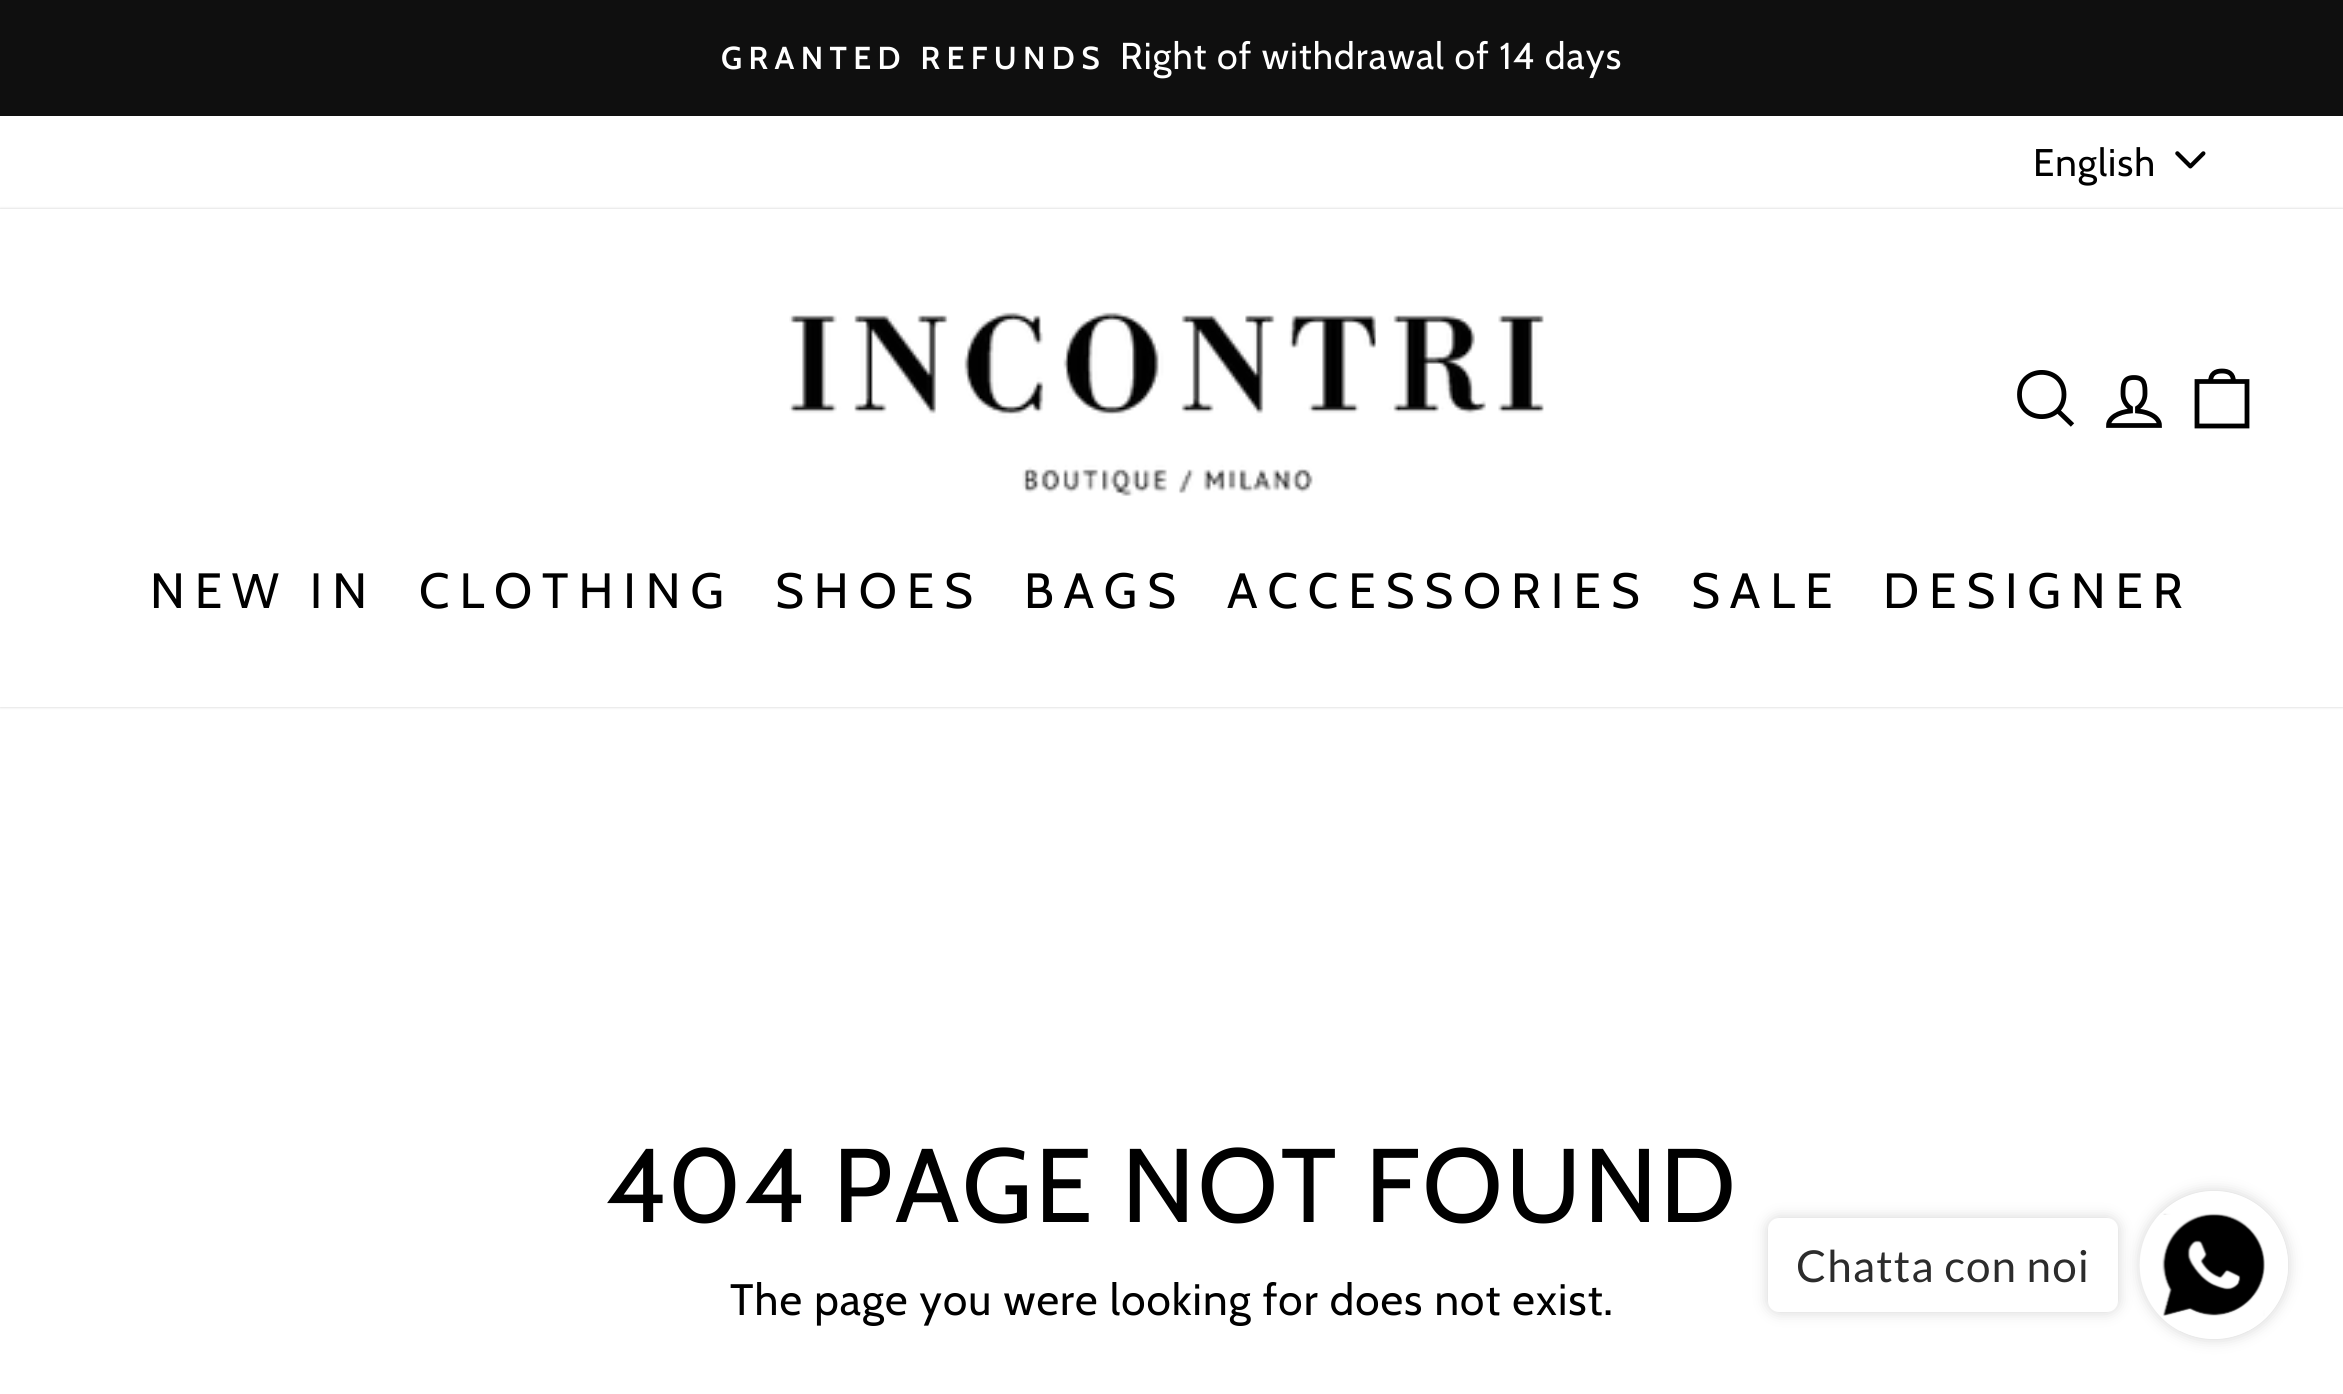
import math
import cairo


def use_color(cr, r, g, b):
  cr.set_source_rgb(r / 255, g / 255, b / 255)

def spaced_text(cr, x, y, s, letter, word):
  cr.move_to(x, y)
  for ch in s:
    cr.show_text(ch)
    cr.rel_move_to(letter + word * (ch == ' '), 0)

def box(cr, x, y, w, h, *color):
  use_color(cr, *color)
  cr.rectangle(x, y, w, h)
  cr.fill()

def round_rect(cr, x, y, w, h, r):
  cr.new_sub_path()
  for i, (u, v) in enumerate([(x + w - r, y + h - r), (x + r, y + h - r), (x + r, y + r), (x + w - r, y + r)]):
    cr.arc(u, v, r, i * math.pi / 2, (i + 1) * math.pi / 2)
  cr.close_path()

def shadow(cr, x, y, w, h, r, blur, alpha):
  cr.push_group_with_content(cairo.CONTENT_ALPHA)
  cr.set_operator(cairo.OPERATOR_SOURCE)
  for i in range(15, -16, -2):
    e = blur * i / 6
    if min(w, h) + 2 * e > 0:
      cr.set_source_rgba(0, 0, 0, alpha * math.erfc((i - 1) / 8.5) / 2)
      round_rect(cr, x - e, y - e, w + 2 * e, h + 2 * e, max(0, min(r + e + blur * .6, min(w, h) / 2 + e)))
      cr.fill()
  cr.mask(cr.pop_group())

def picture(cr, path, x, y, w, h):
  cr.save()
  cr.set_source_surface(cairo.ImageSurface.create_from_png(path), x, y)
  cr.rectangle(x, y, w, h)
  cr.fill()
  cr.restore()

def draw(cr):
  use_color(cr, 255, 255, 255)
  cr.paint()
  box(cr, 0, 0, 2343, 116, 15, 15, 15)
  picture(cr, "img_01.png", 2175, 151, 31, 18)
  use_color(cr, 0, 0, 0)
  shadow(cr, 0, 209, 2343, 498, 0, 1.5, 0.2)
  box(cr, 0, 209, 2343, 498, 255, 255, 255)
  picture(cr, "img_02.png", 789, 312, 755, 184)
  cr.new_path()
  cr.move_to(2064, 394.5)
  cr.curve_to(2064, 424, 2019.5, 424, 2019.5, 394.5)
  cr.curve_to(2019.5, 365, 2064, 365, 2064, 394.5)
  cr.close_path()
  cr.move_to(2072.5, 425)
  cr.line_to(2058, 411)
  use_color(cr, 0, 0, 0)
  cr.set_line_width(4.8)
  cr.stroke()
  cr.new_path()
  cr.move_to(2137.5, 411)
  cr.line_to(2137.5, 408)
  cr.curve_to(2141.5, 405.5, 2145, 400, 2145, 394)
  cr.curve_to(2145, 385, 2145, 377.5, 2134, 377.5)
  cr.curve_to(2123, 377.5, 2123, 385, 2123, 394)
  cr.curve_to(2123, 400, 2126.5, 405.5, 2130.5, 408)
  cr.line_to(2130.5, 411)
  cr.curve_to(2118, 412, 2108.5, 418, 2108.5, 425.5)
  cr.line_to(2159.5, 425.5)
  cr.curve_to(2159.5, 418, 2150, 412, 2137.5, 411)
  cr.close_path()
  cr.stroke()
  cr.new_path()
  cr.move_to(2197, 381.5)
  cr.line_to(2247, 381.5)
  cr.line_to(2247, 426)
  cr.line_to(2197, 426)
  cr.close_path()
  cr.move_to(2210.5, 382)
  cr.curve_to(2210.5, 373.5, 2215.5, 371, 2222, 371)
  cr.curve_to(2228.5, 371, 2233.5, 373.5, 2233.5, 382)
  cr.stroke()
  cr.save()
  cr.set_fill_rule(cairo.FILL_RULE_EVEN_ODD)
  cr.new_path()
  cr.move_to(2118, 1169)
  cr.line_to(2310, 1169)
  cr.line_to(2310, 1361)
  cr.line_to(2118, 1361)
  cr.close_path()
  cr.move_to(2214, 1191)
  cr.curve_to(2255, 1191, 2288, 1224, 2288, 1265)
  cr.curve_to(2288, 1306, 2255, 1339, 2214, 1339)
  cr.curve_to(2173, 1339, 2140, 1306, 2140, 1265)
  cr.curve_to(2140, 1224, 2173, 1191, 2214, 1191)
  cr.close_path()
  cr.clip()
  use_color(cr, 211, 211, 211)
  shadow(cr, 2140, 1191, 148, 148, 74, 7, 1)
  cr.restore()
  use_color(cr, 211, 211, 211)
  shadow(cr, 1768, 1218, 350, 94, 11, 7, 1)
  use_color(cr, 255, 255, 255)
  round_rect(cr, 1768, 1218, 350, 94, 11)
  cr.fill()
  picture(cr, "img_03.png", 2139, 1213, 149, 118)
  cr.select_font_face("Cabin SemiBold")
  cr.set_font_size(31.75)
  spaced_text(cr, 721, 69, "GRANTED REFUNDS", 6.4, 0)
  cr.select_font_face("Cabin")
  cr.set_font_size(37.4)
  spaced_text(cr, 1120, 69, "Right of withdrawal of 14 days", 1.1, 0)
  cr.set_font_size(38.5)
  use_color(cr, 0, 0, 0)
  spaced_text(cr, 2033, 176, "English", 1, 0)
  cr.set_font_size(49.5)
  spaced_text(cr, 150, 608, "NEW IN", 9.9, 0)
  spaced_text(cr, 419, 608, "CLOTHING", 9.9, 0)
  spaced_text(cr, 775, 608, "SHOES", 9.9, 0)
  spaced_text(cr, 1024, 608, "BAGS", 9.9, 0)
  spaced_text(cr, 1227, 608, "ACCESSORIES", 9.9, 0)
  spaced_text(cr, 1691, 608, "SALE", 9.9, 0)
  spaced_text(cr, 1883, 608, "DESIGNER", 9.9, 0)
  cr.set_font_size(104.5)
  spaced_text(cr, 605, 1222, "404 PAGE NOT FOUND", 2.6, 0)
  cr.set_font_size(44)
  spaced_text(cr, 730, 1315, "The page you were looking for does not exist.", 1.1, 0)
  cr.select_font_face("Lato")
  use_color(cr, 44, 44, 44)
  spaced_text(cr, 1796, 1282, "Chatta con noi", 1.1, 0)


surface = cairo.ImageSurface(cairo.FORMAT_RGB24, 2343, 1394)
cr = cairo.Context(surface)
options = cairo.FontOptions()
options.set_hint_metrics(cairo.HINT_METRICS_OFF)
options.set_hint_style(cairo.HINT_STYLE_NONE)
cr.set_font_options(options)
cr.set_miter_limit(4)
draw(cr)
surface.write_to_png("out.png")
